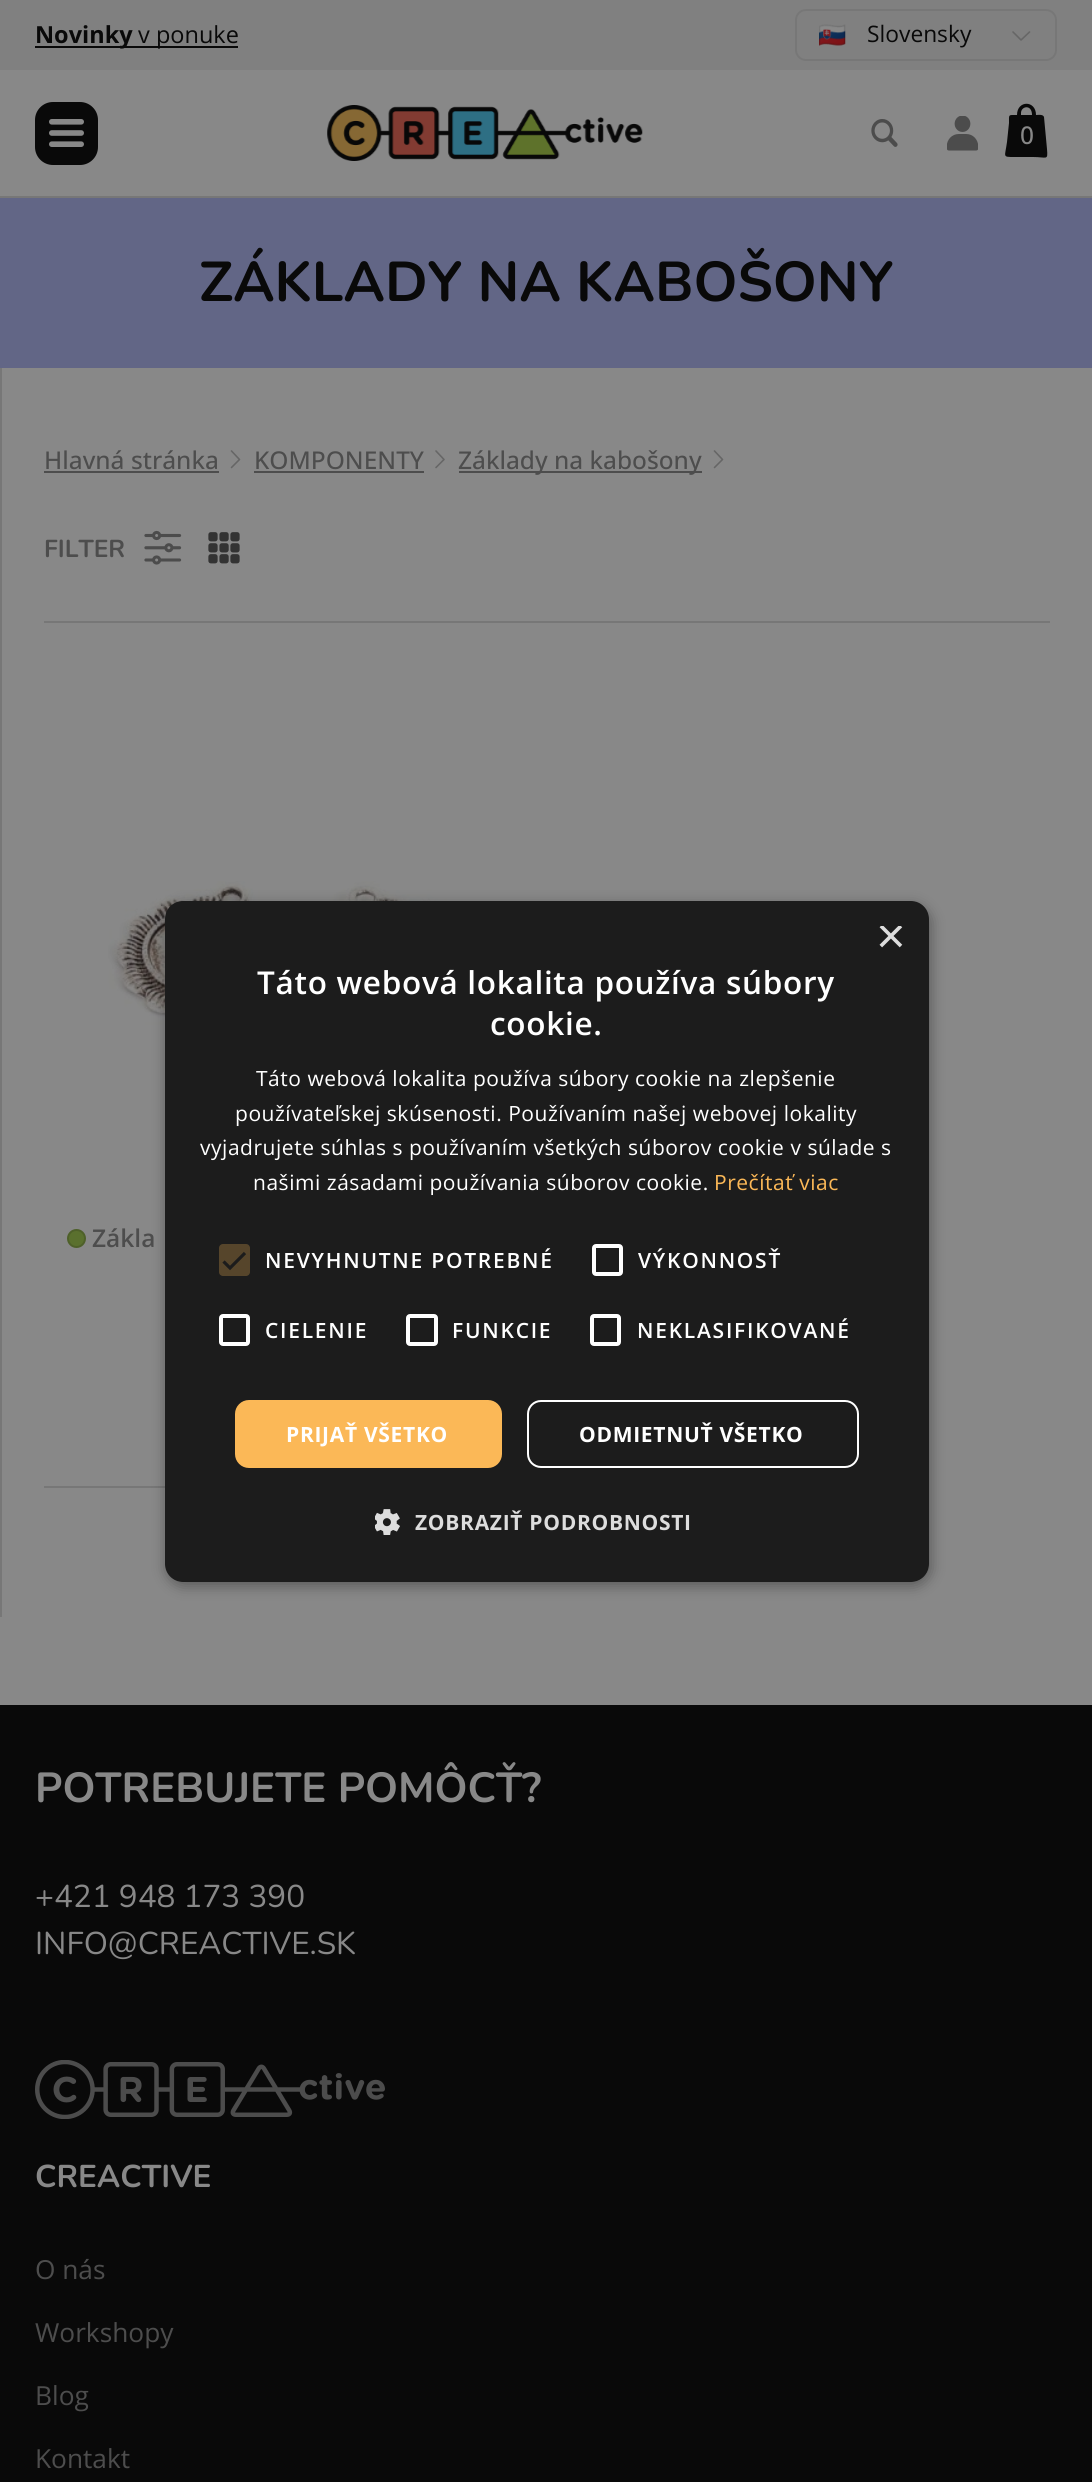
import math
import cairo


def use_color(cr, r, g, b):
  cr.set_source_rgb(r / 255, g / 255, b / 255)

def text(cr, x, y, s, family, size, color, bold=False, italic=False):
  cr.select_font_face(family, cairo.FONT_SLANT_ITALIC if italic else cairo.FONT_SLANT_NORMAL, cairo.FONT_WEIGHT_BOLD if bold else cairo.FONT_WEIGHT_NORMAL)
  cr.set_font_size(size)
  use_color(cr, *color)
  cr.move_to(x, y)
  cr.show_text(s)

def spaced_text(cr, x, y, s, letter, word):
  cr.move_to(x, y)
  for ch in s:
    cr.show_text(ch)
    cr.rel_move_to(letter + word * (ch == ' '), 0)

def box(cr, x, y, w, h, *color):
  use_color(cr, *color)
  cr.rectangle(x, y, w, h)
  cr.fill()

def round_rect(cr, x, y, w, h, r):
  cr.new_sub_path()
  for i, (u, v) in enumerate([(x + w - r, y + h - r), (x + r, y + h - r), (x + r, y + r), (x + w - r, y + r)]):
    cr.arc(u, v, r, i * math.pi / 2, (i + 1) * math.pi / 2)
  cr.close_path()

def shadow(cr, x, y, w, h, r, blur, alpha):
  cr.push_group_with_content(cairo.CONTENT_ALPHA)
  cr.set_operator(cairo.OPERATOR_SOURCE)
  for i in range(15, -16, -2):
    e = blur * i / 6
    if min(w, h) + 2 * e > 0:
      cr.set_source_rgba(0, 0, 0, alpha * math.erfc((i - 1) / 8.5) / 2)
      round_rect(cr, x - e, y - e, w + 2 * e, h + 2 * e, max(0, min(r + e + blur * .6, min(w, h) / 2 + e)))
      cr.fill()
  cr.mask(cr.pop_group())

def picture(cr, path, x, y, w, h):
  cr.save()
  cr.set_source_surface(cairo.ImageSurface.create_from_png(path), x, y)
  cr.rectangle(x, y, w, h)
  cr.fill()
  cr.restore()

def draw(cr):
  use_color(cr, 136, 136, 136)
  cr.paint()
  box(cr, 0, 0, 1092, 70, 128, 128, 128)
  box(cr, 35, 46, 96, 2, 9, 9, 9)
  box(cr, 131, 46, 107, 2, 9, 9, 9)
  round_rect(cr, 796, 10, 260, 50, 10)
  use_color(cr, 119, 119, 119)
  cr.stroke()
  picture(cr, "img_01.png", 819, 24, 27, 22)
  cr.new_path()
  cr.move_to(1029.5, 32)
  cr.line_to(1021, 40)
  cr.line_to(1013, 32)
  use_color(cr, 102, 102, 102)
  cr.set_line_width(1.6)
  cr.set_line_cap(cairo.LINE_CAP_ROUND)
  cr.set_line_join(cairo.LINE_JOIN_ROUND)
  cr.stroke()
  box(cr, 0, 196, 1092, 2, 119, 119, 119)
  use_color(cr, 9, 9, 9)
  round_rect(cr, 35, 102, 63, 63, 18)
  cr.fill()
  picture(cr, "img_02.png", 49, 119, 35, 28)
  picture(cr, "img_03.png", 327, 105, 316, 56)
  picture(cr, "img_04.png", 871, 119, 27, 28)
  picture(cr, "img_05.png", 947, 116, 31, 35)
  cr.new_path()
  cr.move_to(1044, 117)
  cr.curve_to(1043, 114, 1038, 115, 1036, 115)
  cr.curve_to(1036, 100, 1017, 100, 1017, 115)
  cr.curve_to(1008, 115, 1009, 114, 1009, 123)
  cr.line_to(1007, 142)
  cr.curve_to(1005, 157, 1002, 157, 1014, 157)
  cr.line_to(1033, 157)
  cr.curve_to(1047, 157, 1048, 161, 1047, 149)
  cr.close_path()
  cr.move_to(1021, 113)
  cr.curve_to(1021, 106, 1032, 104, 1032, 115)
  cr.line_to(1021, 115)
  cr.close_path()
  cr.fill()
  box(cr, 0, 198, 1092, 170, 98, 102, 134)
  box(cr, 0, 368, 2, 1249, 119, 119, 119)
  box(cr, 44, 471, 175, 2, 77, 77, 77)
  cr.new_path()
  cr.move_to(231.5, 451)
  cr.line_to(239.5, 459.5)
  cr.line_to(231.5, 467.5)
  use_color(cr, 102, 102, 102)
  cr.stroke()
  box(cr, 254, 471, 170, 2, 77, 77, 77)
  cr.new_path()
  cr.move_to(436, 451)
  cr.line_to(444, 459.5)
  cr.line_to(436, 467.5)
  use_color(cr, 102, 102, 102)
  cr.stroke()
  box(cr, 459, 471, 243, 2, 77, 77, 77)
  cr.new_path()
  cr.move_to(714.5, 451)
  cr.line_to(722.5, 459.5)
  cr.line_to(714.5, 467.5)
  use_color(cr, 102, 102, 102)
  cr.stroke()
  picture(cr, "img_06.png", 144, 530, 38, 35)
  picture(cr, "img_07.png", 208, 532, 32, 32)
  box(cr, 44, 621, 1006, 2, 119, 119, 119)
  box(cr, 44, 1486, 121, 2, 119, 119, 119)
  picture(cr, "img_08.png", 108, 881, 386, 151)
  use_color(cr, 90, 112, 46)
  cr.arc(76.5, 1238.5, 8.5, 0, 2 * math.pi)
  cr.fill_preserve()
  use_color(cr, 78, 96, 41)
  cr.set_line_width(2)
  cr.set_line_cap(cairo.LINE_CAP_BUTT)
  cr.set_line_join(cairo.LINE_JOIN_MITER)
  cr.stroke()
  cr.save()
  cr.set_fill_rule(cairo.FILL_RULE_EVEN_ODD)
  cr.new_path()
  cr.move_to(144, 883)
  cr.line_to(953, 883)
  cr.line_to(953, 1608)
  cr.line_to(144, 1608)
  cr.close_path()
  cr.move_to(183, 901)
  cr.line_to(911, 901)
  cr.curve_to(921, 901, 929, 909, 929, 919)
  cr.line_to(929, 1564)
  cr.curve_to(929, 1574, 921, 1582, 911, 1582)
  cr.line_to(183, 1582)
  cr.curve_to(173, 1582, 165, 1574, 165, 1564)
  cr.line_to(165, 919)
  cr.curve_to(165, 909, 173, 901, 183, 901)
  cr.close_path()
  cr.clip()
  use_color(cr, 0, 0, 0)
  shadow(cr, 166, 905, 765, 681, 18, 7, 0.35)
  cr.restore()
  use_color(cr, 28, 28, 28)
  round_rect(cr, 165, 901, 764, 681, 18)
  cr.fill()
  use_color(cr, 86, 69, 43)
  round_rect(cr, 219, 1244, 31, 32, 4)
  cr.fill()
  cr.new_path()
  cr.move_to(223.5, 1261.5)
  cr.line_to(230, 1268)
  cr.line_to(245, 1253)
  use_color(cr, 28, 28, 28)
  cr.set_line_width(3.2)
  cr.stroke()
  round_rect(cr, 594, 1246, 27, 28, 2)
  use_color(cr, 255, 255, 255)
  cr.set_line_width(4)
  cr.stroke()
  round_rect(cr, 221, 1316, 27, 28, 2)
  cr.stroke()
  round_rect(cr, 408, 1316, 28, 28, 2)
  cr.stroke()
  round_rect(cr, 592, 1316, 27, 28, 2)
  cr.stroke()
  use_color(cr, 251, 184, 87)
  round_rect(cr, 235, 1400, 267, 68, 14)
  cr.fill()
  round_rect(cr, 528, 1401, 330, 66, 13)
  use_color(cr, 255, 255, 255)
  cr.set_line_width(2)
  cr.stroke()
  picture(cr, "img_09.png", 375, 1509, 25, 26)
  box(cr, 0, 1705, 1092, 777, 9, 9, 9)
  picture(cr, "img_10.png", 35, 2060, 350, 59)
  text(cr, 35, 43, "Novinky", "Open Sans", 23.5, (9, 9, 9), bold=True)
  text(cr, 138, 43, "v ponuke", "Open Sans", 23.5, (9, 9, 9))
  text(cr, 867, 42, "Slovensky", "Open Sans", 22.75, (9, 9, 9))
  text(cr, 1020, 144, "0", "Open Sans Medium", 24.5, (136, 136, 136))
  text(cr, 199, 301, "ZÁKLADY NA KABOŠONY", "Nunito", 56, (9, 9, 9), bold=True)
  text(cr, 44, 469, "Hlavná stránka", "Open Sans Medium", 24.5, (77, 77, 77))
  text(cr, 254, 469, "KOMPONENTY", "Open Sans Medium", 24.5, (77, 77, 77))
  text(cr, 458, 469, "Základy na kabošony", "Open Sans Medium", 24.5, (77, 77, 77))
  text(cr, 44, 557, "FILTER", "Nunito", 24.5, (77, 77, 77), bold=True)
  text(cr, 92, 1247, "Zákla", "Open Sans SemiBold", 24.5, (77, 77, 77))
  cr.save()
  cr.rectangle(877, 926, 26, 26)
  cr.clip()
  text(cr, 876, 953, "×", "Liberation Sans", 51, (221, 221, 221))
  cr.restore()
  cr.select_font_face("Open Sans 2 SemiBold")
  cr.set_font_size(31.5)
  use_color(cr, 255, 255, 255)
  spaced_text(cr, 257, 994, "Táto webová lokalita používa súbory", 0.7, 0)
  spaced_text(cr, 490, 1035, "cookie.", 0.7, 0)
  cr.select_font_face("Open Sans 2")
  cr.set_font_size(21)
  spaced_text(cr, 256, 1086, "Táto webová lokalita používa súbory cookie na zlepšenie", 0.53, 0)
  spaced_text(cr, 235, 1121, "používateľskej skúsenosti. Používaním našej webovej lokality", 0.53, 0)
  spaced_text(cr, 200, 1155, "vyjadrujete súhlas s používaním všetkých súborov cookie v súlade s", 0.53, 0)
  spaced_text(cr, 253, 1190, "našimi zásadami používania súborov cookie.", 0.53, 0)
  use_color(cr, 251, 184, 87)
  spaced_text(cr, 714, 1190, "Prečítať viac", 0.53, 0)
  cr.select_font_face("Open Sans 2 SemiBold")
  use_color(cr, 255, 255, 255)
  spaced_text(cr, 265, 1268, "NEVYHNUTNE POTREBNÉ", 1.75, 0)
  spaced_text(cr, 638, 1268, "VÝKONNOSŤ", 1.75, 0)
  spaced_text(cr, 265, 1338, "CIELENIE", 1.75, 0)
  spaced_text(cr, 452, 1338, "FUNKCIE", 1.75, 0)
  spaced_text(cr, 637, 1338, "NEKLASIFIKOVANÉ", 1.75, 0)
  cr.select_font_face("Open Sans 2", cairo.FONT_SLANT_NORMAL, cairo.FONT_WEIGHT_BOLD)
  spaced_text(cr, 286, 1442, "PRIJAŤ VŠETKO", 0.7, 0)
  spaced_text(cr, 579, 1442, "ODMIETNUŤ VŠETKO", 0.7, 0)
  use_color(cr, 221, 221, 221)
  spaced_text(cr, 415, 1530, "ZOBRAZIŤ PODROBNOSTI", 0.7, 0)
  text(cr, 35, 1802, "POTREBUJETE POMÔCŤ?", "Nunito", 42, (136, 136, 136), bold=True)
  text(cr, 35, 1907, "+421 948 173 390", "Nunito", 31.5, (136, 136, 136))
  text(cr, 35, 1954, "INFO@CREACTIVE.SK", "Nunito", 31.5, (136, 136, 136))
  text(cr, 35, 2187, "CREACTIVE", "Nunito", 31.5, (136, 136, 136), bold=True)
  text(cr, 35, 2279, "O nás", "Open Sans", 26.25, (77, 77, 77))
  text(cr, 35, 2342, "Workshopy", "Open Sans", 26.25, (77, 77, 77))
  text(cr, 35, 2405, "Blog", "Open Sans", 26.25, (77, 77, 77))
  text(cr, 35, 2468, "Kontakt", "Open Sans", 26.25, (77, 77, 77))


surface = cairo.ImageSurface(cairo.FORMAT_RGB24, 1092, 2482)
cr = cairo.Context(surface)
options = cairo.FontOptions()
options.set_hint_metrics(cairo.HINT_METRICS_OFF)
options.set_hint_style(cairo.HINT_STYLE_NONE)
cr.set_font_options(options)
cr.set_miter_limit(4)
draw(cr)
surface.write_to_png("out.png")
